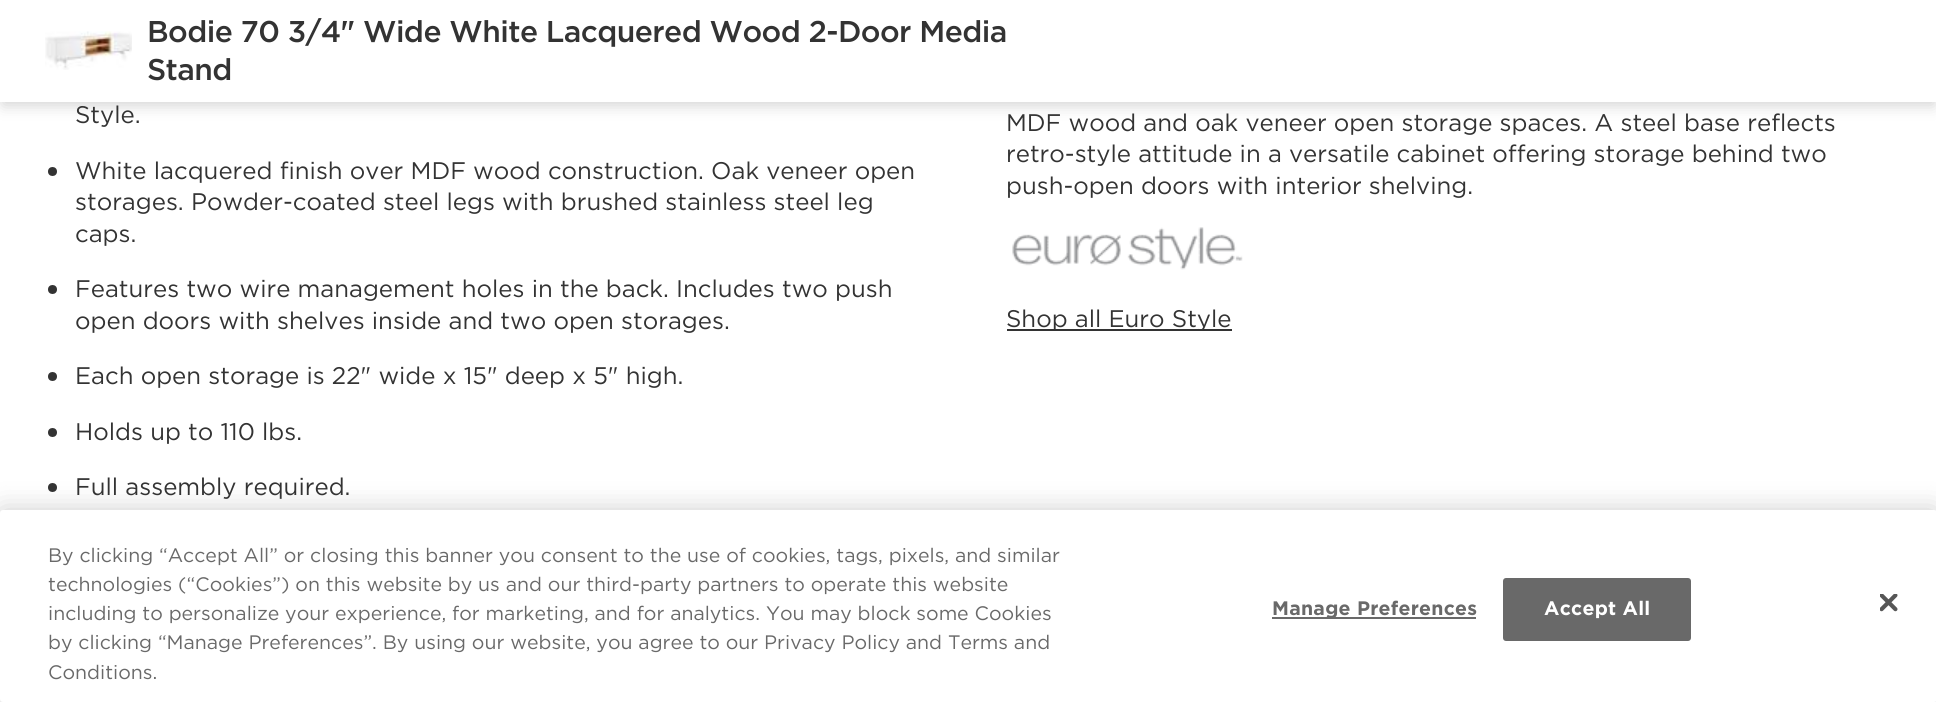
import math
import cairo


def use_color(cr, r, g, b):
  cr.set_source_rgb(r / 255, g / 255, b / 255)

def text(cr, x, y, s, family, size, color, bold=False, italic=False):
  cr.select_font_face(family, cairo.FONT_SLANT_ITALIC if italic else cairo.FONT_SLANT_NORMAL, cairo.FONT_WEIGHT_BOLD if bold else cairo.FONT_WEIGHT_NORMAL)
  cr.set_font_size(size)
  use_color(cr, *color)
  cr.move_to(x, y)
  cr.show_text(s)

def spaced_text(cr, x, y, s, letter, word):
  cr.move_to(x, y)
  for ch in s:
    cr.show_text(ch)
    cr.rel_move_to(letter + word * (ch == ' '), 0)

def box(cr, x, y, w, h, *color):
  use_color(cr, *color)
  cr.rectangle(x, y, w, h)
  cr.fill()

def round_rect(cr, x, y, w, h, r):
  cr.new_sub_path()
  for i, (u, v) in enumerate([(x + w - r, y + h - r), (x + r, y + h - r), (x + r, y + r), (x + w - r, y + r)]):
    cr.arc(u, v, r, i * math.pi / 2, (i + 1) * math.pi / 2)
  cr.close_path()

def shadow(cr, x, y, w, h, r, blur, alpha):
  cr.push_group_with_content(cairo.CONTENT_ALPHA)
  cr.set_operator(cairo.OPERATOR_SOURCE)
  for i in range(15, -16, -2):
    e = blur * i / 6
    if min(w, h) + 2 * e > 0:
      cr.set_source_rgba(0, 0, 0, alpha * math.erfc((i - 1) / 8.5) / 2)
      round_rect(cr, x - e, y - e, w + 2 * e, h + 2 * e, max(0, min(r + e + blur * .6, min(w, h) / 2 + e)))
      cr.fill()
  cr.mask(cr.pop_group())

def picture(cr, path, x, y, w, h):
  cr.save()
  cr.set_source_surface(cairo.ImageSurface.create_from_png(path), x, y)
  cr.rectangle(x, y, w, h)
  cr.fill()
  cr.restore()

def draw(cr):
  use_color(cr, 255, 255, 255)
  cr.paint()
  use_color(cr, 102, 102, 102)
  shadow(cr, 3, 9, 1931, 96, 0, 7.5, 0.3)
  box(cr, 0, 0, 1936, 102, 255, 255, 255)
  picture(cr, "img_01.png", 45, 31, 87, 39)
  use_color(cr, 51, 51, 51)
  cr.arc(52.5, 171.5, 4.5, 0, 2 * math.pi)
  cr.fill()
  cr.arc(52.5, 289.5, 4.5, 0, 2 * math.pi)
  cr.fill()
  cr.arc(52.5, 376.5, 4.5, 0, 2 * math.pi)
  cr.fill()
  cr.arc(52.5, 432.5, 4.5, 0, 2 * math.pi)
  cr.fill()
  cr.arc(52.5, 487.5, 4.5, 0, 2 * math.pi)
  cr.fill()
  picture(cr, "img_02.png", 1012, 227, 231, 43)
  box(cr, 1007, 329, 225, 2, 51, 51, 51)
  use_color(cr, 0, 0, 0)
  shadow(cr, 0, 510, 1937, 192, 3, 13.5, 0.2)
  use_color(cr, 255, 255, 255)
  round_rect(cr, 0, 510, 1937, 192, 3)
  cr.fill()
  box(cr, 1272, 617, 204, 2, 105, 105, 105)
  round_rect(cr, 1504, 579, 186, 61, 2)
  cr.fill_preserve()
  cr.stroke()
  picture(cr, "img_03.png", 1880, 594, 18, 18)
  cr.select_font_face("Gotham Medium")
  cr.set_font_size(30)
  use_color(cr, 51, 51, 51)
  spaced_text(cr, 147, 42, "Bodie 70 3/4\" Wide White Lacquered Wood 2-Door Media", -0.6, 0)
  spaced_text(cr, 147, 80, "Stand", -0.6, 0)
  text(cr, 75, 123, "Style.", "Gotham", 24, (51, 51, 51))
  text(cr, 75, 179, "White lacquered finish over MDF wood construction. Oak veneer open", "Gotham", 24, (51, 51, 51))
  text(cr, 75, 210, "storages. Powder-coated steel legs with brushed stainless steel leg", "Gotham", 24, (51, 51, 51))
  text(cr, 75, 242, "caps.", "Gotham", 24, (51, 51, 51))
  text(cr, 75, 297, "Features two wire management holes in the back. Includes two push", "Gotham", 24, (51, 51, 51))
  text(cr, 75, 329, "open doors with shelves inside and two open storages.", "Gotham", 24, (51, 51, 51))
  text(cr, 75, 384, "Each open storage is 22\" wide x 15\" deep x 5\" high.", "Gotham", 24, (51, 51, 51))
  text(cr, 75, 440, "Holds up to 110 lbs.", "Gotham", 24, (51, 51, 51))
  text(cr, 75, 495, "Full assembly required.", "Gotham", 24, (51, 51, 51))
  text(cr, 1006, 131, "MDF wood and oak veneer open storage spaces. A steel base reflects", "Gotham", 24, (51, 51, 51))
  text(cr, 1006, 162, "retro-style attitude in a versatile cabinet offering storage behind two", "Gotham", 24, (51, 51, 51))
  text(cr, 1006, 194, "push-open doors with interior shelving.", "Gotham", 24, (51, 51, 51))
  text(cr, 1006, 327, "Shop all Euro Style", "Gotham", 24, (51, 51, 51))
  text(cr, 48, 562, "By clicking “Accept All” or closing this banner you consent to the use of cookies, tags, pixels, and similar", "Gotham", 19.5, (105, 105, 105))
  text(cr, 48, 591, "technologies (“Cookies”) on this website by us and our third-party partners to operate this website", "Gotham", 19.5, (105, 105, 105))
  text(cr, 48, 620, "including to personalize your experience, for marketing, and for analytics.", "Gotham", 19.5, (105, 105, 105))
  text(cr, 766, 620, "You may block some Cookies", "Gotham", 19.5, (105, 105, 105))
  text(cr, 48, 649, "by clicking “Manage Preferences”. By using our website, you agree to our Privacy Policy and Terms and", "Gotham", 19.5, (105, 105, 105))
  text(cr, 48, 679, "Conditions.", "Gotham", 19.5, (105, 105, 105))
  cr.select_font_face("Gotham", cairo.FONT_SLANT_NORMAL, cairo.FONT_WEIGHT_BOLD)
  spaced_text(cr, 1272, 615, "Manage Preferences", 0.25, 0)
  use_color(cr, 255, 255, 255)
  spaced_text(cr, 1544, 615, "Accept All", 0.25, 0)


surface = cairo.ImageSurface(cairo.FORMAT_RGB24, 1936, 702)
cr = cairo.Context(surface)
options = cairo.FontOptions()
options.set_hint_metrics(cairo.HINT_METRICS_OFF)
options.set_hint_style(cairo.HINT_STYLE_NONE)
cr.set_font_options(options)
cr.set_miter_limit(4)
draw(cr)
surface.write_to_png("out.png")
